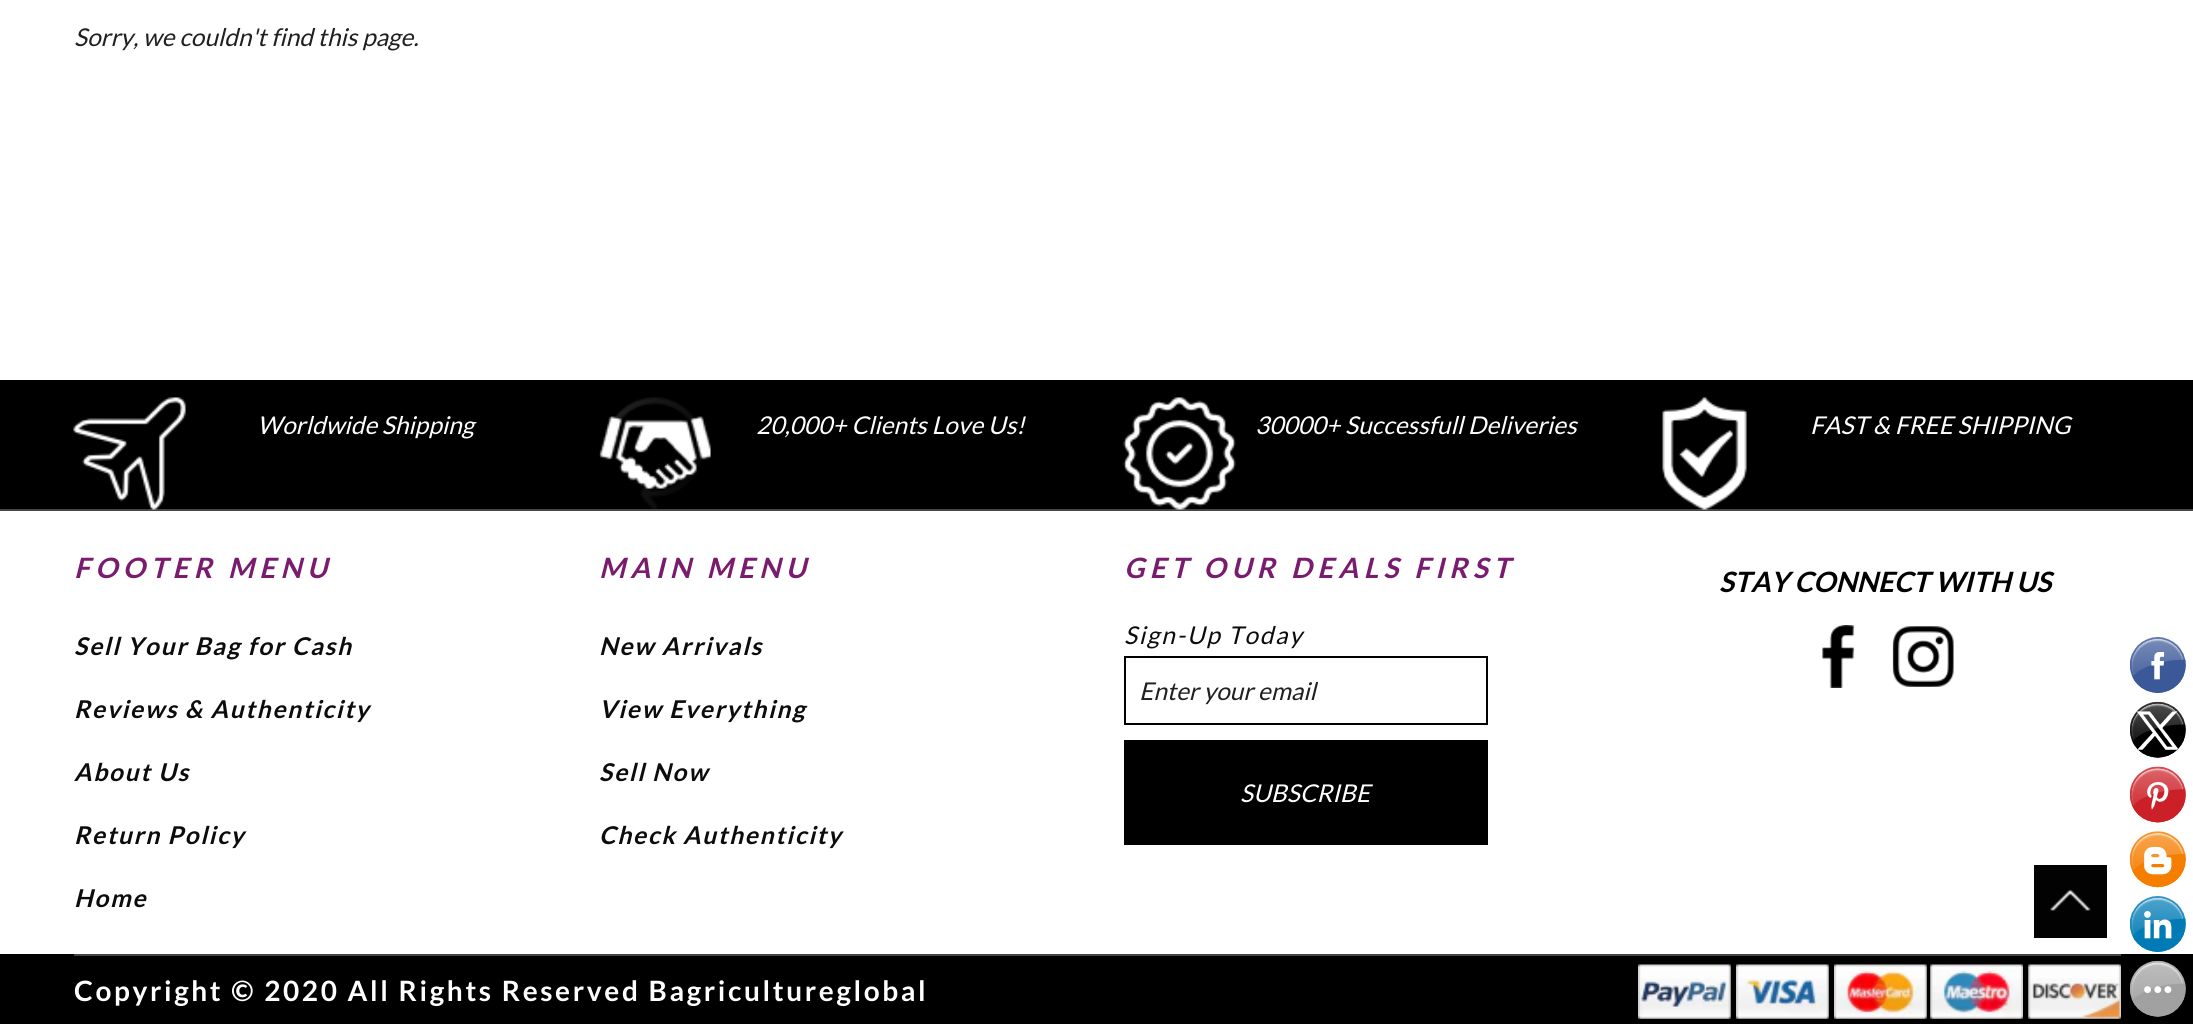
import math
import cairo


def use_color(cr, r, g, b):
  cr.set_source_rgb(r / 255, g / 255, b / 255)

def text(cr, x, y, s, family, size, color, bold=False, italic=False):
  cr.select_font_face(family, cairo.FONT_SLANT_ITALIC if italic else cairo.FONT_SLANT_NORMAL, cairo.FONT_WEIGHT_BOLD if bold else cairo.FONT_WEIGHT_NORMAL)
  cr.set_font_size(size)
  use_color(cr, *color)
  cr.move_to(x, y)
  cr.show_text(s)

def spaced_text(cr, x, y, s, letter, word):
  cr.move_to(x, y)
  for ch in s:
    cr.show_text(ch)
    cr.rel_move_to(letter + word * (ch == ' '), 0)

def box(cr, x, y, w, h, *color):
  use_color(cr, *color)
  cr.rectangle(x, y, w, h)
  cr.fill()

def picture(cr, path, x, y, w, h):
  cr.save()
  cr.set_source_surface(cairo.ImageSurface.create_from_png(path), x, y)
  cr.rectangle(x, y, w, h)
  cr.fill()
  cr.restore()

def draw(cr):
  use_color(cr, 255, 255, 255)
  cr.paint()
  box(cr, 0, 380, 2193, 129, 0, 0, 0)
  box(cr, 0, 509, 2193, 2, 70, 70, 70)
  picture(cr, "img_01.png", 73, 397, 113, 113)
  picture(cr, "img_02.png", 599, 397, 112, 113)
  picture(cr, "img_03.png", 1123, 397, 113, 113)
  picture(cr, "img_04.png", 1662, 397, 85, 113)
  cr.rectangle(1125, 657, 362, 67)
  use_color(cr, 0, 0, 0)
  cr.stroke()
  box(cr, 1124, 740, 364, 105, 0, 0, 0)
  picture(cr, "img_05.png", 1822, 625, 33, 63)
  picture(cr, "img_06.png", 1892, 626, 62, 61)
  box(cr, 0, 954, 2193, 70, 0, 0, 0)
  box(cr, 74, 954, 2047, 2, 68, 68, 68)
  picture(cr, "img_07.png", 1638, 964, 93, 55)
  picture(cr, "img_08.png", 1736, 964, 93, 55)
  picture(cr, "img_09.png", 1834, 964, 93, 55)
  picture(cr, "img_10.png", 1930, 964, 93, 55)
  picture(cr, "img_11.png", 2028, 964, 93, 55)
  picture(cr, "img_12.png", 2130, 637, 56, 380)
  box(cr, 2034, 865, 73, 73, 2, 2, 2)
  picture(cr, "img_13.png", 2050, 889, 41, 22)
  text(cr, 74, 46, "Sorry, we couldn't find this page.", "Lato", 24.5, (32, 32, 32), italic=True)
  text(cr, 257, 434, "Worldwide Shipping", "Lato", 24.5, (255, 255, 255), italic=True)
  text(cr, 756, 434, "20,000+ Clients Love Us!", "Lato", 24.5, (255, 255, 255), italic=True)
  text(cr, 1255, 434, "30000+ Successfull Deliveries", "Lato", 24.5, (255, 255, 255), italic=True)
  text(cr, 1810, 434, "FAST & FREE SHIPPING", "Lato", 24.5, (255, 255, 255), italic=True)
  cr.select_font_face("Lato", cairo.FONT_SLANT_ITALIC, cairo.FONT_WEIGHT_BOLD)
  cr.set_font_size(28)
  use_color(cr, 121, 27, 110)
  spaced_text(cr, 74, 578, "FOOTER MENU", 5.25, 0)
  cr.set_font_size(24.5)
  use_color(cr, 13, 11, 11)
  spaced_text(cr, 74, 655, "Sell Your Bag for Cash", 1.75, 0)
  spaced_text(cr, 74, 718, "Reviews & Authenticity", 1.75, 0)
  spaced_text(cr, 74, 781, "About Us", 1.75, 0)
  spaced_text(cr, 74, 844, "Return Policy", 1.75, 0)
  spaced_text(cr, 74, 907, "Home", 1.75, 0)
  cr.set_font_size(28)
  use_color(cr, 121, 27, 110)
  spaced_text(cr, 599, 578, "MAIN MENU", 5.25, 0)
  cr.set_font_size(24.5)
  use_color(cr, 13, 11, 11)
  spaced_text(cr, 599, 655, "New Arrivals", 1.75, 0)
  spaced_text(cr, 599, 718, "View Everything", 1.75, 0)
  spaced_text(cr, 599, 781, "Sell Now", 1.75, 0)
  spaced_text(cr, 599, 844, "Check Authenticity", 1.75, 0)
  cr.set_font_size(28)
  use_color(cr, 121, 27, 110)
  spaced_text(cr, 1124, 578, "GET OUR DEALS FIRST", 5.25, 0)
  cr.select_font_face("Lato", cairo.FONT_SLANT_ITALIC)
  cr.set_font_size(24.5)
  use_color(cr, 13, 11, 11)
  spaced_text(cr, 1124, 644, "Sign-Up Today", 1.75, 0)
  text(cr, 1139, 700, "Enter your email", "Lato", 24.5, (32, 32, 32), italic=True)
  text(cr, 1240, 802, "SUBSCRIBE", "Lato", 24.5, (255, 255, 255), italic=True)
  text(cr, 1719, 592, "STAY CONNECT WITH US", "Lato", 28, (0, 0, 0), bold=True, italic=True)
  cr.select_font_face("Lato", cairo.FONT_SLANT_NORMAL, cairo.FONT_WEIGHT_BOLD)
  use_color(cr, 255, 255, 255)
  spaced_text(cr, 74, 1001, "Copyright © 2020 All Rights Reserved Bagricultureglobal", 2.62, 0)


surface = cairo.ImageSurface(cairo.FORMAT_RGB24, 2193, 1024)
cr = cairo.Context(surface)
options = cairo.FontOptions()
options.set_hint_metrics(cairo.HINT_METRICS_OFF)
options.set_hint_style(cairo.HINT_STYLE_NONE)
cr.set_font_options(options)
cr.set_miter_limit(4)
draw(cr)
surface.write_to_png("out.png")
